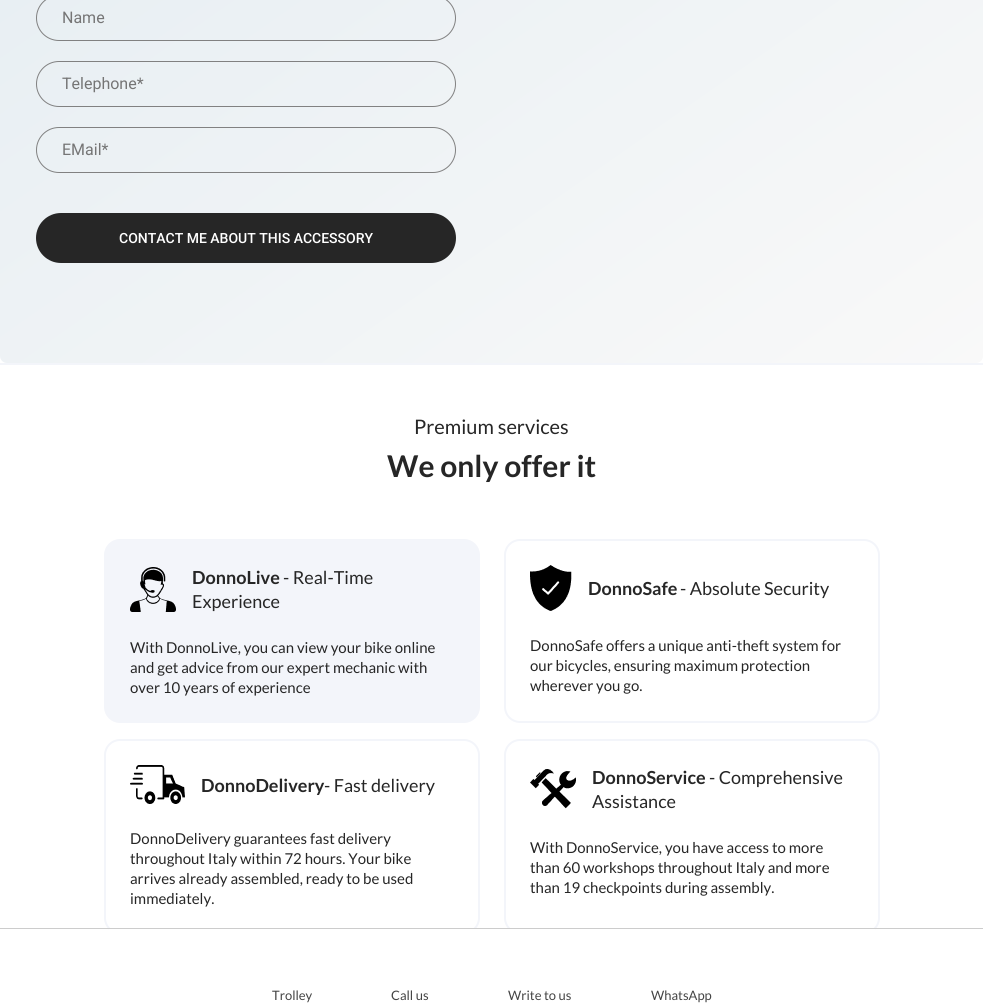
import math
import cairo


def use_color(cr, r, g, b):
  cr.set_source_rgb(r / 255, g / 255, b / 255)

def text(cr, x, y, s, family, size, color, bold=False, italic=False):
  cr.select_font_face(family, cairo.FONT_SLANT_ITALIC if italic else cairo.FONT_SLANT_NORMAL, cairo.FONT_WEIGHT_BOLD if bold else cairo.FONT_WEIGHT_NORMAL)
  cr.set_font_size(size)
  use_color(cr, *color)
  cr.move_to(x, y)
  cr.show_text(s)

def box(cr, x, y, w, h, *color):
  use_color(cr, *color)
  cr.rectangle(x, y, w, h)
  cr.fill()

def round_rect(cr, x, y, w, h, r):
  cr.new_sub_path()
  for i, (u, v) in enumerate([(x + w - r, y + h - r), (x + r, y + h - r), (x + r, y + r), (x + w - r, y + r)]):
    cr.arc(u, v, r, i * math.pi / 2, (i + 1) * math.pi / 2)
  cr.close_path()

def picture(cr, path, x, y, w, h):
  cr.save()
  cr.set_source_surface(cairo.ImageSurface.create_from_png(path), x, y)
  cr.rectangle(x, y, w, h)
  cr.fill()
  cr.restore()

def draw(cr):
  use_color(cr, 255, 255, 255)
  cr.paint()
  gradient = cairo.LinearGradient(168, -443, 815, 481)
  gradient.add_color_stop_rgba(0, 0.89, 0.925, 0.945, 1)
  gradient.add_color_stop_rgba(1, 0.976, 0.976, 0.976, 1)
  cr.set_source(gradient)
  round_rect(cr, 0, -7, 983, 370, 7)
  cr.fill()
  round_rect(cr, 36.5, -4.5, 419, 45, 22.5)
  use_color(cr, 129, 129, 129)
  cr.set_line_width(1)
  cr.stroke()
  round_rect(cr, 36.5, 61.5, 419, 45, 22.5)
  cr.stroke()
  round_rect(cr, 36.5, 127.5, 419, 45, 22.5)
  cr.stroke()
  use_color(cr, 38, 38, 38)
  round_rect(cr, 36, 213, 420, 50, 25)
  cr.fill()
  box(cr, 0, 363, 983, 2, 243, 245, 250)
  round_rect(cr, 105, 540, 374, 182, 15)
  cr.fill_preserve()
  cr.set_line_width(2)
  cr.stroke()
  picture(cr, "img_01.png", 130, 567, 46, 45)
  round_rect(cr, 505, 540, 374, 182, 15)
  cr.stroke()
  picture(cr, "img_02.png", 530, 565, 42, 46)
  round_rect(cr, 105, 740, 374, 193, 15)
  cr.stroke()
  picture(cr, "img_03.png", 130, 765, 55, 39)
  round_rect(cr, 505, 740, 374, 193, 15)
  cr.stroke()
  picture(cr, "img_04.png", 530, 769, 46, 40)
  box(cr, 109, 929, 766, 5, 255, 255, 255)
  box(cr, 0, 928, 983, 1, 204, 204, 204)
  text(cr, 62, 23, "Name", "Roboto", 16, (117, 117, 117))
  text(cr, 62, 89, "Telephone*", "Roboto", 16, (117, 117, 117))
  text(cr, 62, 155, "EMail*", "Roboto", 16, (117, 117, 117))
  text(cr, 119, 243, "CONTACT ME ABOUT THIS ACCESSORY", "Roboto Medium", 14, (255, 255, 255))
  text(cr, 414, 434, "Premium services", "Lato", 20, (38, 38, 38))
  text(cr, 387, 477, "We only offer it", "Lato", 30, (38, 38, 38), bold=True)
  text(cr, 192, 584, "DonnoLive", "Lato", 18, (38, 38, 38), bold=True)
  text(cr, 283, 584, "- Real-Time", "Lato", 18, (38, 38, 38))
  text(cr, 192, 608, "Experience", "Lato", 18, (38, 38, 38))
  text(cr, 130, 653, "With DonnoLive, you can view your bike online", "Lato", 15, (38, 38, 38))
  text(cr, 130, 673, "and get advice from our expert mechanic with", "Lato", 15, (38, 38, 38))
  text(cr, 130, 693, "over 10 years of experience", "Lato", 15, (38, 38, 38))
  text(cr, 588, 595, "DonnoSafe", "Lato", 18, (38, 38, 38), bold=True)
  text(cr, 680, 595, "- Absolute Security", "Lato", 18, (38, 38, 38))
  text(cr, 530, 651, "DonnoSafe offers a unique anti-theft system for", "Lato", 15, (38, 38, 38))
  text(cr, 530, 671, "our bicycles, ensuring maximum protection", "Lato", 15, (38, 38, 38))
  text(cr, 530, 691, "wherever you go.", "Lato", 15, (38, 38, 38))
  text(cr, 201, 792, "DonnoDelivery", "Lato", 18, (38, 38, 38), bold=True)
  text(cr, 324, 792, "- Fast delivery", "Lato", 18, (38, 38, 38))
  text(cr, 130, 844, "DonnoDelivery guarantees fast delivery", "Lato", 15, (38, 38, 38))
  text(cr, 130, 864, "throughout Italy within 72 hours. Your bike", "Lato", 15, (38, 38, 38))
  text(cr, 130, 884, "arrives already assembled, ready to be used", "Lato", 15, (38, 38, 38))
  text(cr, 130, 904, "immediately.", "Lato", 15, (38, 38, 38))
  text(cr, 592, 784, "DonnoService", "Lato", 18, (38, 38, 38), bold=True)
  text(cr, 709, 784, "- Comprehensive", "Lato", 18, (38, 38, 38))
  text(cr, 592, 808, "Assistance", "Lato", 18, (38, 38, 38))
  text(cr, 530, 853, "With DonnoService, you have access to more", "Lato", 15, (38, 38, 38))
  text(cr, 530, 873, "than 60 workshops throughout Italy and more", "Lato", 15, (38, 38, 38))
  text(cr, 530, 893, "than 19 checkpoints during assembly.", "Lato", 15, (38, 38, 38))
  text(cr, 272, 1000, "Trolley", "Lato", 13, (68, 68, 68))
  text(cr, 391, 1000, "Call us", "Lato", 13, (68, 68, 68))
  text(cr, 508, 1000, "Write to us", "Lato", 13, (68, 68, 68))
  text(cr, 651, 1000, "WhatsApp", "Lato", 13, (68, 68, 68))


surface = cairo.ImageSurface(cairo.FORMAT_RGB24, 983, 1007)
cr = cairo.Context(surface)
options = cairo.FontOptions()
options.set_hint_metrics(cairo.HINT_METRICS_OFF)
options.set_hint_style(cairo.HINT_STYLE_NONE)
cr.set_font_options(options)
cr.set_miter_limit(4)
draw(cr)
surface.write_to_png("out.png")
